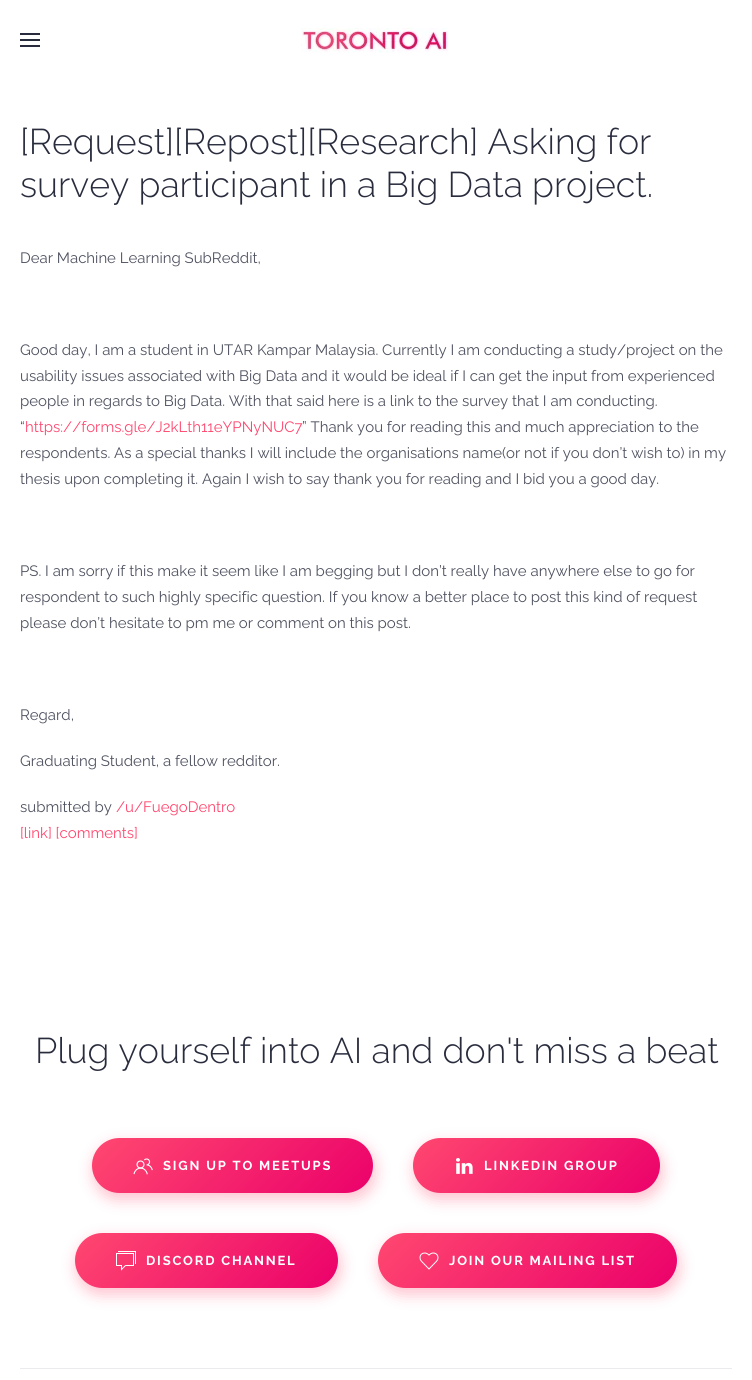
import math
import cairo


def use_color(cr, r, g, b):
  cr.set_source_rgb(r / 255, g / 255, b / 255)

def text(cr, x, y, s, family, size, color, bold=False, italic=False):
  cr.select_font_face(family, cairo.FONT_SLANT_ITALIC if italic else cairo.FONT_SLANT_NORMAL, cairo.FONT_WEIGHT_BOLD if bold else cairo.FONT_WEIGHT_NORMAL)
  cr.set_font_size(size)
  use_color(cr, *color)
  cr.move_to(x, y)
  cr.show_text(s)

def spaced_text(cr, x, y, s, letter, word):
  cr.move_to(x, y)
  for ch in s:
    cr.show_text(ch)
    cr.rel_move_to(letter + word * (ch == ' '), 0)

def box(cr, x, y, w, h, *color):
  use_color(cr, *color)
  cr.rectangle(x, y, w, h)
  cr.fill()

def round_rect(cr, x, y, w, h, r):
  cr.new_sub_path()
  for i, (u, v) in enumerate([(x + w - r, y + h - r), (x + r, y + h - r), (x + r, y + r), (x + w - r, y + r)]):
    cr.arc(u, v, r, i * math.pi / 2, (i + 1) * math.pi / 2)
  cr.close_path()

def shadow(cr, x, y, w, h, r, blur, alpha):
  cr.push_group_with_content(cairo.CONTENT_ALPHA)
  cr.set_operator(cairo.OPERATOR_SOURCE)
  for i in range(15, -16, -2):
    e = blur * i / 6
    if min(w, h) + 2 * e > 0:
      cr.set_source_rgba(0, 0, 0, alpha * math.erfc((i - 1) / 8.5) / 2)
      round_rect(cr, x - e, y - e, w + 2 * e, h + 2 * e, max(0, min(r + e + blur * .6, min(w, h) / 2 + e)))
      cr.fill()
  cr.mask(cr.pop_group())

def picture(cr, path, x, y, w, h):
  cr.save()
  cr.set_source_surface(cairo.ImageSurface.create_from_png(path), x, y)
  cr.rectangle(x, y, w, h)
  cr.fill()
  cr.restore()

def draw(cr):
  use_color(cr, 255, 255, 255)
  cr.paint()
  box(cr, 20, 33, 20, 2, 41, 44, 61)
  box(cr, 20, 39, 20, 2, 41, 44, 61)
  box(cr, 20, 45, 20, 2, 41, 44, 61)
  picture(cr, "img_01.png", 301, 28, 147, 25)
  use_color(cr, 255, 72, 112)
  shadow(cr, 94, 1144, 281, 55, 27.5, 7.5, 0.35)
  gradient = cairo.LinearGradient(149, 1082, 317, 1250)
  gradient.add_color_stop_rgba(0, 1, 0.282, 0.439, 1)
  gradient.add_color_stop_rgba(1, 0.922, 0, 0.416, 1)
  cr.set_source(gradient)
  round_rect(cr, 92, 1138, 281, 55, 27.5)
  cr.fill()
  picture(cr, "img_02.png", 133, 1158, 20, 17)
  use_color(cr, 255, 72, 112)
  shadow(cr, 415, 1144, 247, 55, 27.5, 7.5, 0.35)
  gradient = cairo.LinearGradient(461, 1090, 612, 1241)
  gradient.add_color_stop_rgba(0, 1, 0.282, 0.439, 1)
  gradient.add_color_stop_rgba(1, 0.922, 0, 0.416, 1)
  cr.set_source(gradient)
  round_rect(cr, 413, 1138, 247, 55, 27.5)
  cr.fill()
  picture(cr, "img_03.png", 456, 1158, 17, 16)
  use_color(cr, 255, 72, 112)
  shadow(cr, 77, 1239, 263, 55, 27.5, 7.5, 0.35)
  gradient = cairo.LinearGradient(127, 1181, 286, 1340)
  gradient.add_color_stop_rgba(0, 1, 0.282, 0.439, 1)
  gradient.add_color_stop_rgba(1, 0.922, 0, 0.416, 1)
  cr.set_source(gradient)
  round_rect(cr, 75, 1233, 263, 55, 27.5)
  cr.fill()
  picture(cr, "img_04.png", 116, 1251, 20, 20)
  use_color(cr, 255, 72, 112)
  shadow(cr, 380, 1239, 299, 55, 27.5, 7.5, 0.35)
  gradient = cairo.LinearGradient(439, 1172, 616, 1349)
  gradient.add_color_stop_rgba(0, 1, 0.282, 0.439, 1)
  gradient.add_color_stop_rgba(1, 0.922, 0, 0.416, 1)
  cr.set_source(gradient)
  round_rect(cr, 378, 1233, 299, 55, 27.5)
  cr.fill()
  picture(cr, "img_05.png", 419, 1252, 20, 18)
  box(cr, 20, 1368, 712, 1, 235, 235, 237)
  text(cr, 20, 154, "[Request][Repost][Research] Asking for", "Raleway Thin", 35.75, (41, 44, 61))
  text(cr, 20, 197, "survey participant in a Big Data project.", "Raleway Thin", 35.75, (41, 44, 61))
  text(cr, 20, 263, "Dear Machine Learning SubReddit,", "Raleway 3 Thin", 15, (79, 82, 96))
  text(cr, 20, 355, "Good day, I am a student in UTAR Kampar Malaysia. Currently I am conducting a study/project on the", "Raleway 3 Thin", 15, (79, 82, 96))
  text(cr, 20, 381, "usability issues associated with Big Data and it would be ideal if I can get the input from experienced", "Raleway 3 Thin", 15, (79, 82, 96))
  text(cr, 20, 406, "people in regards to Big Data. With that said here is a link to the survey that I am conducting.", "Raleway 3 Thin", 15, (79, 82, 96))
  text(cr, 20, 432, "“", "Raleway 3 Thin", 15, (79, 82, 96))
  text(cr, 25, 432, "https://forms.gle/J2kLth11eYPNyNUC7", "Raleway 3 Thin", 15, (255, 72, 112))
  text(cr, 302, 432, "” Thank you for reading this and much appreciation to the", "Raleway 3 Thin", 15, (79, 82, 96))
  text(cr, 20, 458, "respondents. As a special thanks I will include the organisations name(or not if you don’t wish to) in my", "Raleway 3 Thin", 15, (79, 82, 96))
  text(cr, 20, 484, "thesis upon completing it. Again I wish to say thank you for reading and I bid you a good day.", "Raleway 3 Thin", 15, (79, 82, 96))
  text(cr, 20, 576, "PS. I am sorry if this make it seem like I am begging but I don’t really have anywhere else to go for", "Raleway 3 Thin", 15, (79, 82, 96))
  text(cr, 20, 602, "respondent to such highly specific question. If you know a better place to post this kind of request", "Raleway 3 Thin", 15, (79, 82, 96))
  text(cr, 20, 628, "please don’t hesitate to pm me or comment on this post.", "Raleway 3 Thin", 15, (79, 82, 96))
  text(cr, 20, 720, "Regard,", "Raleway 3 Thin", 15, (79, 82, 96))
  text(cr, 20, 766, "Graduating Student, a fellow redditor.", "Raleway 3 Thin", 15, (79, 82, 96))
  text(cr, 20, 812, "submitted by", "Raleway 3 Thin", 15, (79, 82, 96))
  text(cr, 116, 812, "/u/FuegoDentro", "Raleway 3 Thin", 15, (255, 72, 112))
  text(cr, 20, 838, "[link] [comments]", "Raleway 3 Thin", 15, (255, 72, 112))
  text(cr, 35, 1063, "Plug yourself into AI and don't miss a beat", "Raleway Thin", 35.75, (41, 44, 61))
  cr.select_font_face("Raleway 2 Thin")
  cr.set_font_size(13)
  use_color(cr, 255, 255, 255)
  spaced_text(cr, 163, 1170, "SIGN UP TO MEETUPS", 1.8, 0)
  spaced_text(cr, 484, 1170, "LINKEDIN GROUP", 1.8, 0)
  spaced_text(cr, 146, 1265, "DISCORD CHANNEL", 1.8, 0)
  spaced_text(cr, 449, 1265, "JOIN OUR MAILING LIST", 1.8, 0)


surface = cairo.ImageSurface(cairo.FORMAT_RGB24, 752, 1380)
cr = cairo.Context(surface)
options = cairo.FontOptions()
options.set_hint_metrics(cairo.HINT_METRICS_OFF)
options.set_hint_style(cairo.HINT_STYLE_NONE)
cr.set_font_options(options)
cr.set_miter_limit(4)
draw(cr)
surface.write_to_png("out.png")
